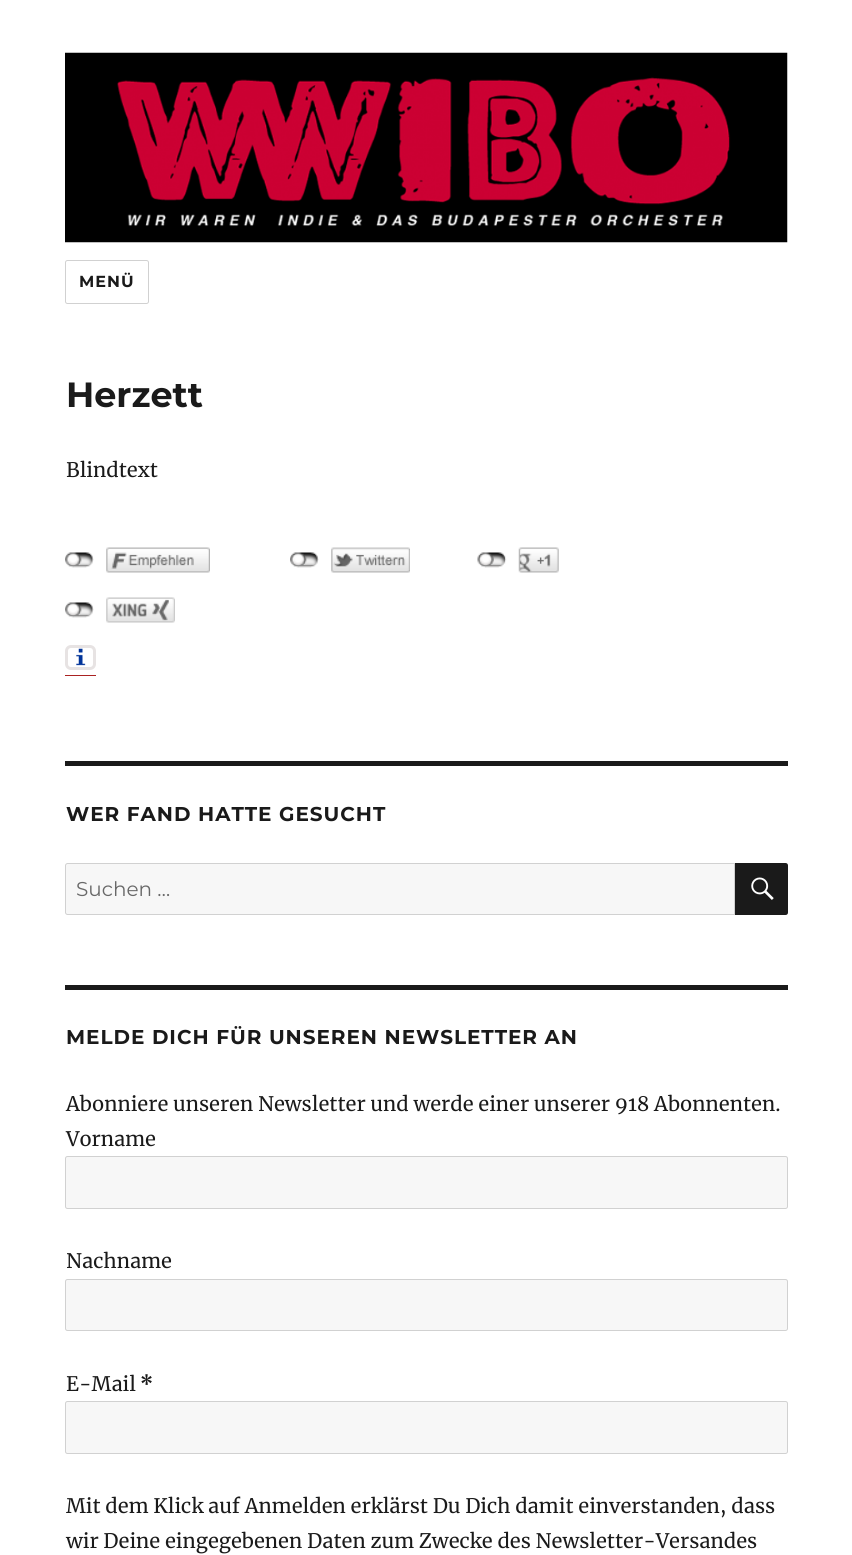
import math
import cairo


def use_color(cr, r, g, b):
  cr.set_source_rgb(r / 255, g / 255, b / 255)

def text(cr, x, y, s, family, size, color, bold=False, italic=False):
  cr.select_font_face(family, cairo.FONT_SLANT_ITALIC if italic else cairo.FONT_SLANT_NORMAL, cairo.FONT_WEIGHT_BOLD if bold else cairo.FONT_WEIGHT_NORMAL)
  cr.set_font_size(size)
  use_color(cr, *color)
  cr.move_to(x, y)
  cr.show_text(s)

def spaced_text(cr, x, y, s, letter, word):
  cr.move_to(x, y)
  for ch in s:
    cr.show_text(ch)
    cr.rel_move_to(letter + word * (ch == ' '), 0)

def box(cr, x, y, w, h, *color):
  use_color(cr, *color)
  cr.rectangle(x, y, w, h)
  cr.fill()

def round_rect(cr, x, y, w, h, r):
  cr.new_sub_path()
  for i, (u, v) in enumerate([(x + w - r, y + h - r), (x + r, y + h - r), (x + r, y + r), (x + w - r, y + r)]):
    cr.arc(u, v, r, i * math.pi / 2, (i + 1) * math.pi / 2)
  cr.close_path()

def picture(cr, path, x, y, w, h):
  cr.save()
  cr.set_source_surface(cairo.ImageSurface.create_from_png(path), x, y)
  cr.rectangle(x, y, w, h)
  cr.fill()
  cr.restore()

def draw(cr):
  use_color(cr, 255, 255, 255)
  cr.paint()
  picture(cr, "img_01.png", 65, 52, 723, 191)
  round_rect(cr, 65.5, 260.5, 83, 43, 2)
  use_color(cr, 209, 209, 209)
  cr.set_line_width(1)
  cr.stroke()
  picture(cr, "img_02.png", 65, 552, 29, 16)
  picture(cr, "img_03.png", 106, 547, 104, 26)
  picture(cr, "img_04.png", 290, 552, 29, 16)
  picture(cr, "img_05.png", 331, 547, 79, 26)
  picture(cr, "img_06.png", 477, 552, 30, 16)
  picture(cr, "img_07.png", 518, 547, 41, 26)
  picture(cr, "img_02.png", 65, 602, 29, 16)
  picture(cr, "img_08.png", 106, 597, 69, 26)
  box(cr, 65, 675, 31, 1, 170, 34, 34)
  picture(cr, "img_09.png", 76, 648, 10, 18)
  round_rect(cr, 66.5, 646.5, 28, 22, 4.5)
  use_color(cr, 231, 227, 227)
  cr.set_line_width(3)
  cr.stroke()
  box(cr, 65, 761, 723, 5, 26, 26, 26)
  use_color(cr, 247, 247, 247)
  cr.new_path()
  cr.move_to(67.5, 863.5)
  cr.line_to(734.5, 863.5)
  cr.line_to(734.5, 914.5)
  cr.line_to(67.5, 914.5)
  cr.curve_to(66.5, 914.5, 65.5, 913.5, 65.5, 912.5)
  cr.line_to(65.5, 865.5)
  cr.curve_to(65.5, 864.5, 66.5, 863.5, 67.5, 863.5)
  cr.close_path()
  cr.fill_preserve()
  use_color(cr, 209, 209, 209)
  cr.set_line_width(1)
  cr.stroke()
  use_color(cr, 26, 26, 26)
  cr.new_path()
  cr.move_to(735, 863)
  cr.line_to(785.5, 863)
  cr.curve_to(787, 863, 788, 864, 788, 865.5)
  cr.line_to(788, 912.5)
  cr.curve_to(788, 914, 787, 915, 785.5, 915)
  cr.line_to(735, 915)
  cr.close_path()
  cr.fill()
  picture(cr, "img_10.png", 751, 877, 23, 23)
  box(cr, 65, 985, 723, 5, 26, 26, 26)
  use_color(cr, 247, 247, 247)
  round_rect(cr, 65.5, 1156.5, 722, 52, 2)
  cr.fill_preserve()
  use_color(cr, 209, 209, 209)
  cr.stroke()
  use_color(cr, 247, 247, 247)
  round_rect(cr, 65.5, 1279.5, 722, 51, 2)
  cr.fill_preserve()
  use_color(cr, 209, 209, 209)
  cr.stroke()
  use_color(cr, 247, 247, 247)
  round_rect(cr, 65.5, 1401.5, 722, 52, 2)
  cr.fill_preserve()
  use_color(cr, 209, 209, 209)
  cr.stroke()
  cr.select_font_face("Montserrat Thin")
  cr.set_font_size(16)
  use_color(cr, 26, 26, 26)
  spaced_text(cr, 79, 287, "MENÜ", 1, 0)
  text(cr, 66, 407, "Herzett", "Montserrat Thin", 35, (26, 26, 26))
  text(cr, 66, 477, "Blindtext", "Merriweather", 20, (26, 26, 26))
  cr.select_font_face("Montserrat Thin")
  spaced_text(cr, 66, 821, "WER FAND HATTE GESUCHT", 0.95, 0)
  text(cr, 76, 896, "Suchen …", "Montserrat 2 Thin", 20, (104, 104, 104))
  cr.select_font_face("Montserrat Thin")
  use_color(cr, 26, 26, 26)
  spaced_text(cr, 66, 1044, "MELDE DICH FÜR UNSEREN NEWSLETTER AN", 0.95, 0)
  text(cr, 66, 1111, "Abonniere unseren Newsletter und werde einer unserer 918 Abonnenten.", "Merriweather", 20, (26, 26, 26))
  text(cr, 66, 1146, "Vorname", "Merriweather", 20, (26, 26, 26))
  text(cr, 66, 1268, "Nachname", "Merriweather", 20, (26, 26, 26))
  text(cr, 66, 1391, "E-Mail", "Merriweather", 20, (26, 26, 26))
  text(cr, 140, 1391, "*", "Merriweather", 20, (26, 26, 26), bold=True)
  text(cr, 66, 1513, "Mit dem Klick auf Anmelden erklärst Du Dich damit einverstanden, dass", "Merriweather", 20, (26, 26, 26))
  text(cr, 66, 1548, "wir Deine eingegebenen Daten zum Zwecke des Newsletter-Versandes", "Merriweather", 20, (26, 26, 26))


surface = cairo.ImageSurface(cairo.FORMAT_RGB24, 852, 1555)
cr = cairo.Context(surface)
options = cairo.FontOptions()
options.set_hint_metrics(cairo.HINT_METRICS_OFF)
options.set_hint_style(cairo.HINT_STYLE_NONE)
cr.set_font_options(options)
cr.set_miter_limit(4)
draw(cr)
surface.write_to_png("out.png")
